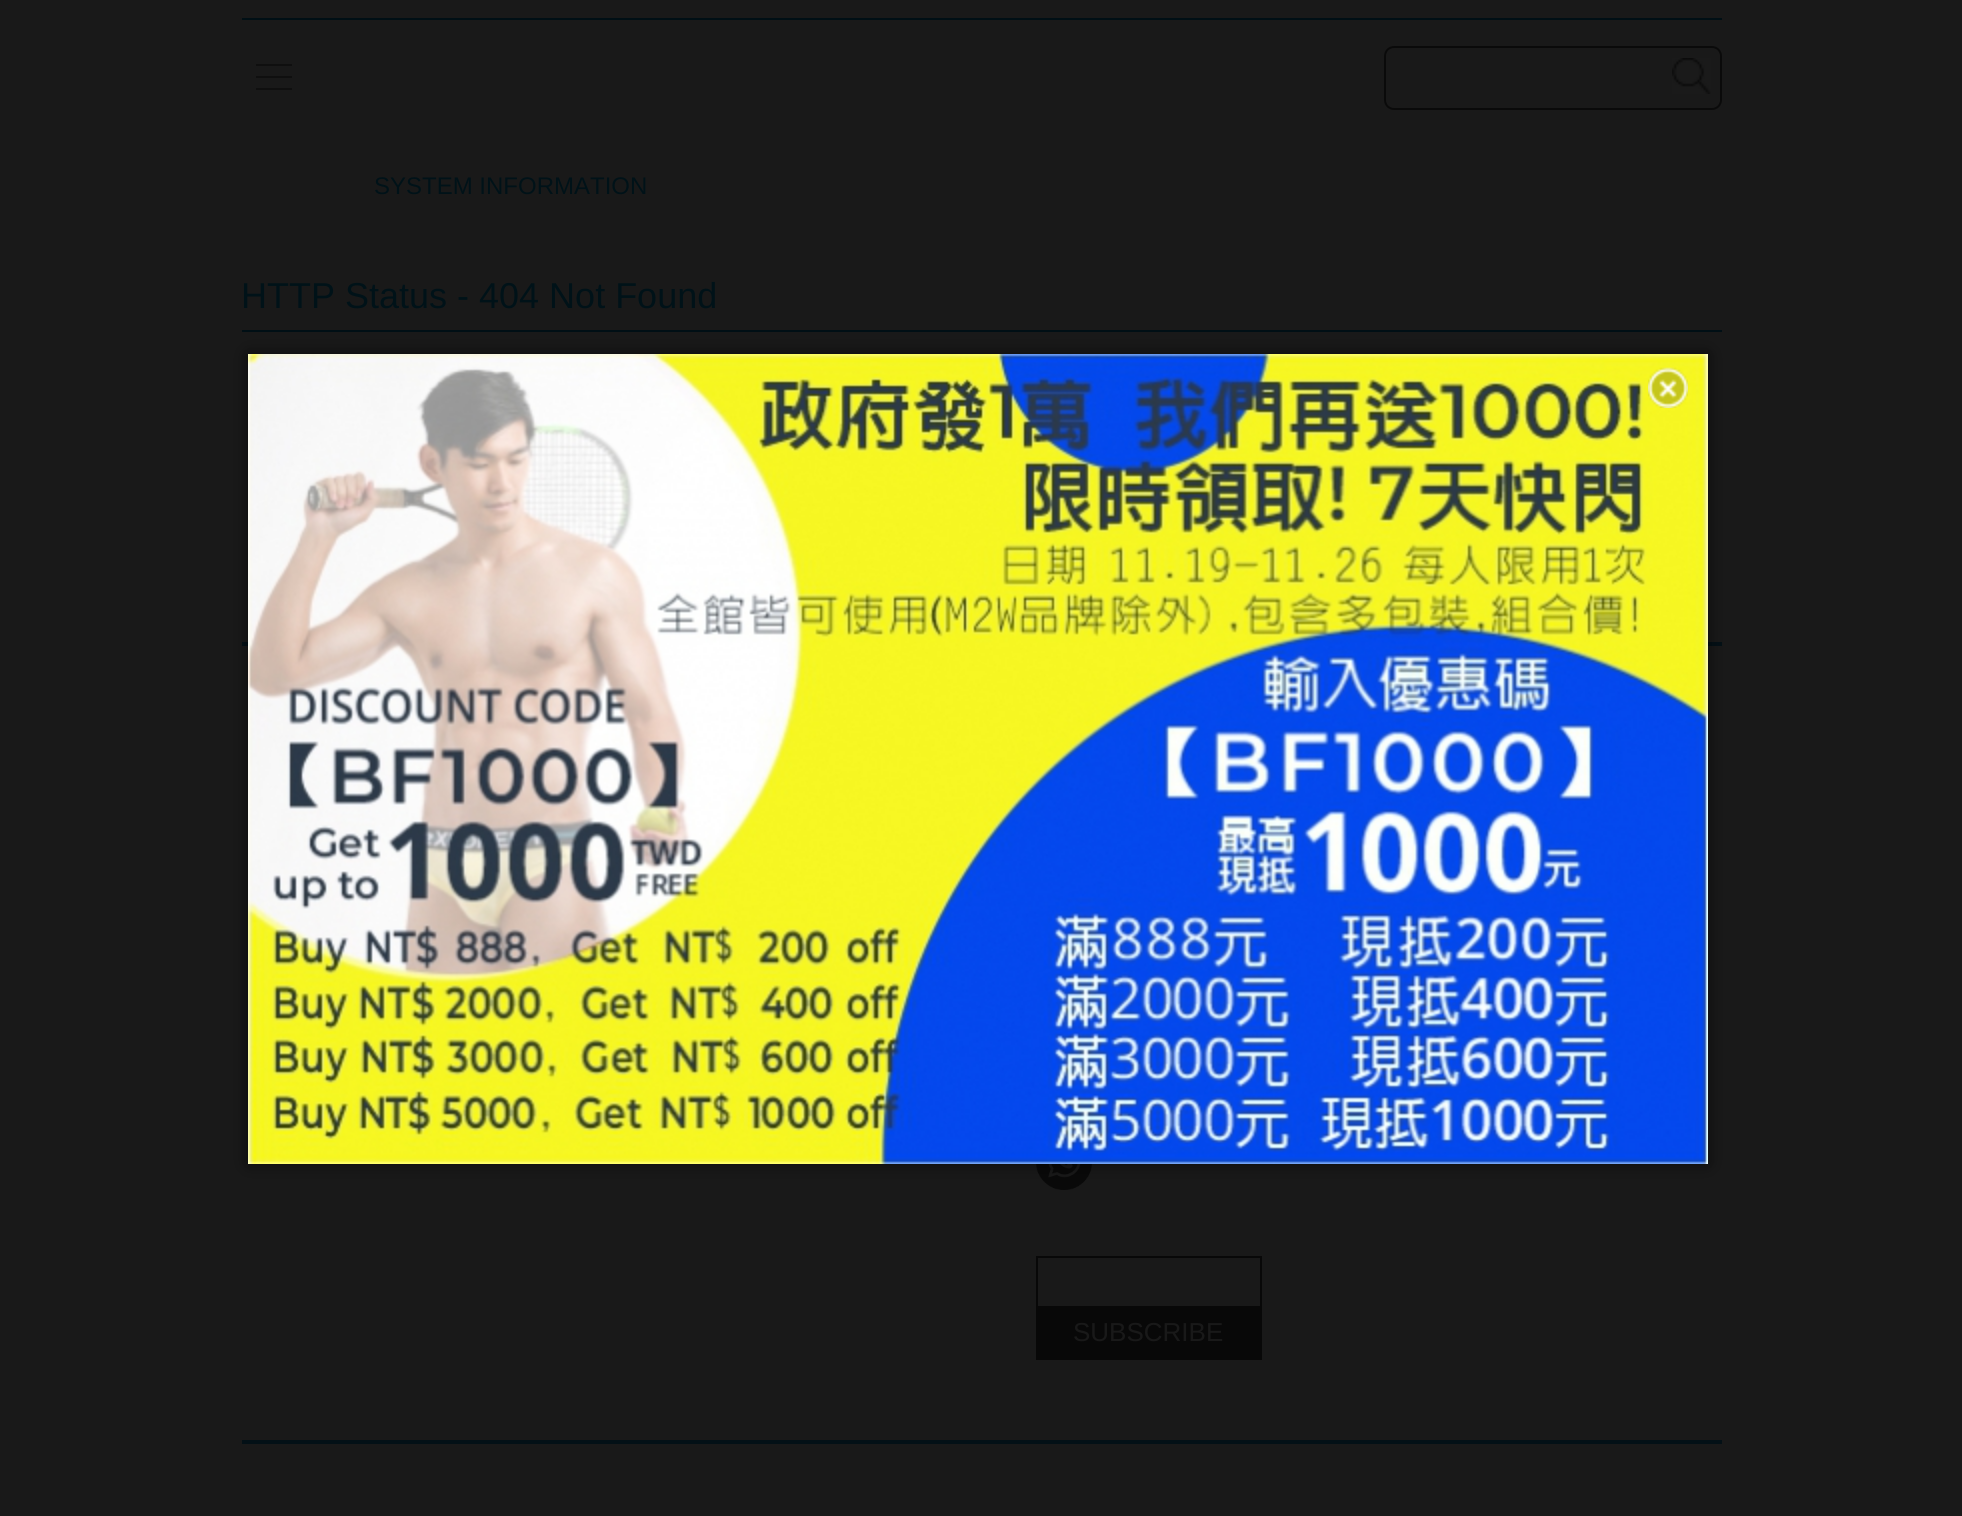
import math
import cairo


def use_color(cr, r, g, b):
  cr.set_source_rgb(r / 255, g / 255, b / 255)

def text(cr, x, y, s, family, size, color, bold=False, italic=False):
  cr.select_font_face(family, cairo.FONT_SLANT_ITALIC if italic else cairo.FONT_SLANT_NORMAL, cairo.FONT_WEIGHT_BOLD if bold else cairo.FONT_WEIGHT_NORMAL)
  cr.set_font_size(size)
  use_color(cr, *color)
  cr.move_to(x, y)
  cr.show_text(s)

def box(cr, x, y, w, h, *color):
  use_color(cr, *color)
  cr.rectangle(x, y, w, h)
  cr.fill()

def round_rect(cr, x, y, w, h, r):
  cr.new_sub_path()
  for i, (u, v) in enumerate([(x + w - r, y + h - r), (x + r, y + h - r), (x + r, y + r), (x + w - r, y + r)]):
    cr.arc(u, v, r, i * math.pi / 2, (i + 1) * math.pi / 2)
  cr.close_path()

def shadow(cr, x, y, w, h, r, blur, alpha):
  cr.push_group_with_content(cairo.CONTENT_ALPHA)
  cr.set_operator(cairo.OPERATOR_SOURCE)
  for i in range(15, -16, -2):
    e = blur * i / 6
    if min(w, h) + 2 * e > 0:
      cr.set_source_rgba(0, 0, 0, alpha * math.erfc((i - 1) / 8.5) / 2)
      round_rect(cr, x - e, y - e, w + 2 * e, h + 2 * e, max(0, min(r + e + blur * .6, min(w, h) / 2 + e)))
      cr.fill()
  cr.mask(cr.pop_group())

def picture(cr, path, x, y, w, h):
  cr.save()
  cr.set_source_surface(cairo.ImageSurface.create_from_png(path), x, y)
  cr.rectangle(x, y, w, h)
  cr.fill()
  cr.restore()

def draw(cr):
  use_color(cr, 25, 25, 25)
  cr.paint()
  box(cr, 242, 18, 1480, 2, 0, 15, 21)
  box(cr, 256, 64, 36, 2, 15, 15, 15)
  box(cr, 256, 76, 36, 2, 15, 15, 15)
  box(cr, 256, 88, 36, 2, 15, 15, 15)
  round_rect(cr, 1385, 47, 336, 62, 9)
  use_color(cr, 10, 10, 10)
  cr.stroke()
  picture(cr, "img_01.png", 1672, 58, 39, 36)
  box(cr, 242, 330, 1480, 2, 0, 15, 21)
  box(cr, 242, 642, 1480, 4, 3, 16, 22)
  picture(cr, "img_04.png", 1036, 1164, 56, 26)
  use_color(cr, 0, 0, 0)
  shadow(cr, 248, 354, 1460, 810, 0, 8, 0.6)
  picture(cr, "img_02.png", 248, 354, 1460, 810)
  picture(cr, "img_03.png", 1648, 367, 40, 41)
  cr.rectangle(1037, 1257, 224, 50)
  use_color(cr, 8, 8, 8)
  cr.stroke()
  box(cr, 1036, 1308, 226, 52, 8, 8, 8)
  box(cr, 242, 1440, 1480, 4, 3, 16, 22)
  text(cr, 374, 194, "SYSTEM INFORMATION", "Liberation Sans", 24, (0, 18, 24))
  text(cr, 241, 308, "HTTP Status - 404 Not Found", "Liberation Sans", 36, (0, 18, 24))
  text(cr, 1073, 1341, "SUBSCRIBE", "Liberation Sans", 26, (25, 25, 25))


surface = cairo.ImageSurface(cairo.FORMAT_RGB24, 1962, 1516)
cr = cairo.Context(surface)
options = cairo.FontOptions()
options.set_hint_metrics(cairo.HINT_METRICS_OFF)
options.set_hint_style(cairo.HINT_STYLE_NONE)
cr.set_font_options(options)
cr.set_miter_limit(4)
draw(cr)
surface.write_to_png("out.png")
